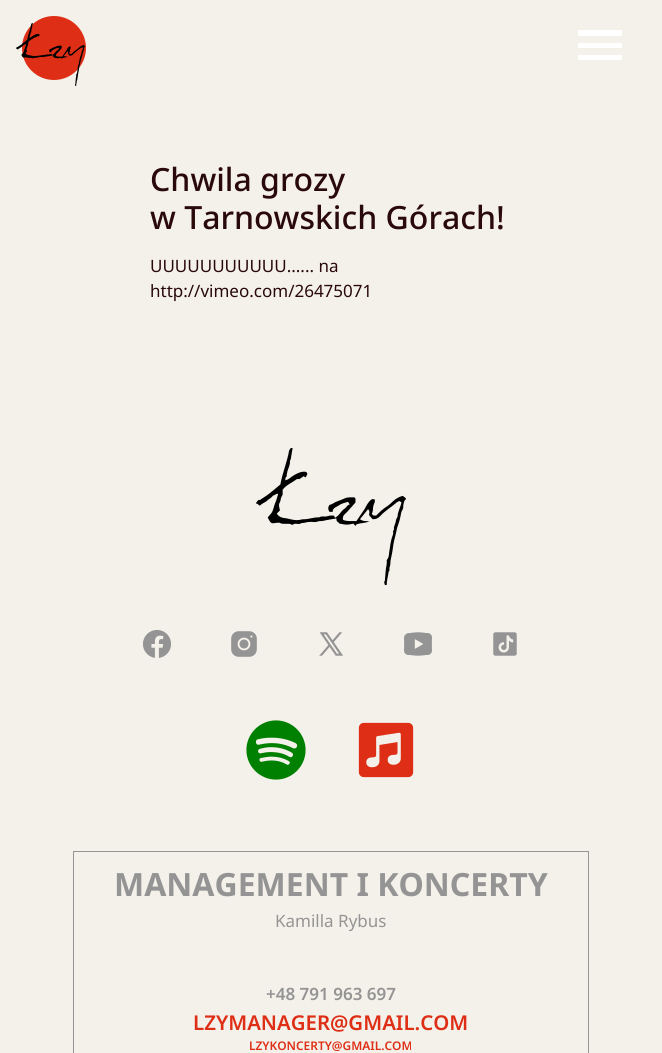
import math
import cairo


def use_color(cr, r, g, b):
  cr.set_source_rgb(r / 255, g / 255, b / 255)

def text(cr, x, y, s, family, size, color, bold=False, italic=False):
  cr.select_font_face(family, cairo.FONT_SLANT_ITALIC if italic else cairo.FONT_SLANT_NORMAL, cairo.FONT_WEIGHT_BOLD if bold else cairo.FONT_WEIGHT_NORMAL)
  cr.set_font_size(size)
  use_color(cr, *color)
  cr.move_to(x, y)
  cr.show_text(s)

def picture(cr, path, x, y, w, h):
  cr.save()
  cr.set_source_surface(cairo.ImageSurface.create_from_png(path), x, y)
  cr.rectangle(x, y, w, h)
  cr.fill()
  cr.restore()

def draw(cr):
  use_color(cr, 244, 241, 234)
  cr.paint()
  picture(cr, "img_01.png", 16, 16, 70, 70)
  use_color(cr, 255, 255, 255)
  cr.new_path()
  cr.move_to(578, 30)
  cr.line_to(622, 30)
  cr.line_to(622, 36)
  cr.line_to(578, 36)
  cr.close_path()
  cr.move_to(578, 43)
  cr.line_to(622, 43)
  cr.line_to(622, 48)
  cr.line_to(578, 48)
  cr.close_path()
  cr.move_to(578, 55)
  cr.line_to(622, 55)
  cr.line_to(622, 60)
  cr.line_to(578, 60)
  cr.close_path()
  cr.fill()
  picture(cr, "img_02.png", 256, 448, 150, 137)
  picture(cr, "img_03.png", 143, 630, 28, 28)
  picture(cr, "img_04.png", 231, 631, 26, 26)
  picture(cr, "img_05.png", 319, 632, 24, 24)
  picture(cr, "img_06.png", 404, 632, 28, 24)
  picture(cr, "img_07.png", 493, 632, 24, 24)
  picture(cr, "img_08.png", 246, 720, 60, 60)
  picture(cr, "img_09.png", 358, 722, 56, 56)
  cr.rectangle(73.5, 851.5, 515, 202)
  use_color(cr, 148, 148, 148)
  cr.set_line_width(1)
  cr.stroke()
  text(cr, 150, 191, "Chwila grozy", "Noto Sans Medium", 32, (41, 9, 9))
  text(cr, 150, 229, "w Tarnowskich Górach!", "Noto Sans Medium", 32, (41, 9, 9))
  text(cr, 150, 272, "UUUUUUUUUUU...... na", "Noto Sans", 17, (41, 9, 9))
  text(cr, 150, 297, "http://vimeo.com/26475071", "Noto Sans", 17, (41, 9, 9))
  text(cr, 114, 896, "MANAGEMENT I KONCERTY", "Noto Sans", 32, (148, 148, 148), bold=True)
  text(cr, 275, 927, "Kamilla Rybus", "Noto Sans", 17, (148, 148, 148))
  text(cr, 266, 1000, "+48 791 963 697", "Noto Sans SemiBold", 17, (148, 148, 148))
  text(cr, 193, 1030, "LZYMANAGER@GMAIL.COM", "Noto Sans SemiBold", 20.4, (222, 46, 22))
  text(cr, 249, 1050, "LZYKONCERTY@GMAIL.COM", "Noto Sans SemiBold", 11.9, (222, 46, 22))


surface = cairo.ImageSurface(cairo.FORMAT_RGB24, 662, 1053)
cr = cairo.Context(surface)
options = cairo.FontOptions()
options.set_hint_metrics(cairo.HINT_METRICS_OFF)
options.set_hint_style(cairo.HINT_STYLE_NONE)
cr.set_font_options(options)
cr.set_miter_limit(4)
draw(cr)
surface.write_to_png("out.png")
